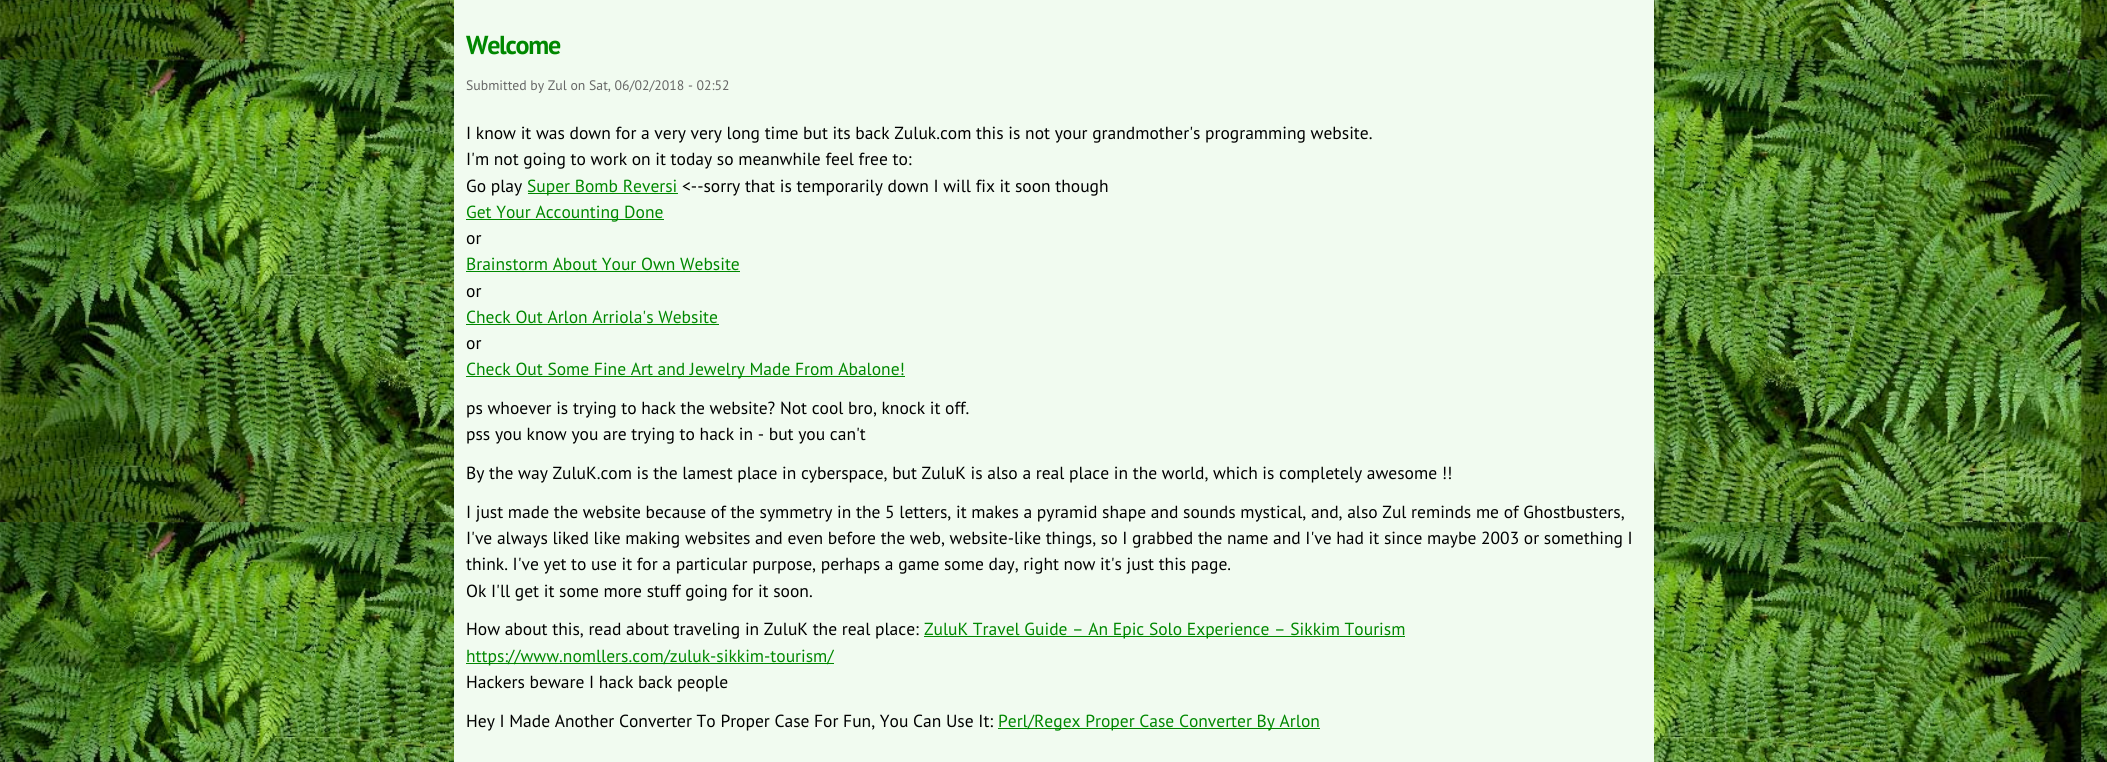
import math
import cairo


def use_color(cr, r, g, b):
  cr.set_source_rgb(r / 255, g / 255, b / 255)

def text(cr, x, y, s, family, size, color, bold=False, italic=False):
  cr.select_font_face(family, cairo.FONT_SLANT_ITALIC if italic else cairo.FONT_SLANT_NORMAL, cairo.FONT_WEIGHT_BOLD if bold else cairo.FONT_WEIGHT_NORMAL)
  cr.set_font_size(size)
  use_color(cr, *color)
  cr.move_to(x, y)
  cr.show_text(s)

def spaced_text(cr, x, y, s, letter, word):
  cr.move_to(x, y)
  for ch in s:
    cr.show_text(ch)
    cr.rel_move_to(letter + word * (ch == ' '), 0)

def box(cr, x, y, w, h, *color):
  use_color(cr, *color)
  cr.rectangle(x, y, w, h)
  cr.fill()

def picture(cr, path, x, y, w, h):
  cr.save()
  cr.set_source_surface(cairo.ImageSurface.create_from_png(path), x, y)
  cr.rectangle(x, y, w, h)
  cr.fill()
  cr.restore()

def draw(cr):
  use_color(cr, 255, 255, 255)
  cr.paint()
  picture(cr, "img_01.png", 0, 0, 2107, 762)
  box(cr, 454, 0, 1200, 762, 241, 251, 240)
  box(cr, 528, 193, 150, 1, 0, 136, 0)
  box(cr, 466, 219, 198, 1, 0, 136, 0)
  box(cr, 466, 271, 274, 1, 0, 136, 0)
  box(cr, 466, 324, 253, 1, 0, 136, 0)
  box(cr, 466, 376, 439, 1, 0, 136, 0)
  box(cr, 924, 636, 481, 1, 0, 136, 0)
  box(cr, 466, 663, 368, 1, 0, 136, 0)
  box(cr, 998, 728, 322, 1, 0, 136, 0)
  cr.select_font_face("PT Sans", cairo.FONT_SLANT_NORMAL, cairo.FONT_WEIGHT_BOLD)
  cr.set_font_size(26)
  spaced_text(cr, 466, 54, "Welcome", -1.25, 0)
  text(cr, 466, 90, "Submitted by Zul on Sat, 06/02/2018 - 02:52", "PT Sans", 13.75, (102, 102, 102))
  text(cr, 466, 139, "I know it was down for a very very long time but its back Zuluk.com this is not your grandmother's programming website.", "PT Sans", 17.5, (0, 0, 0))
  text(cr, 466, 165, "I'm not going to work on it today so meanwhile feel free to:", "PT Sans", 17.5, (0, 0, 0))
  text(cr, 466, 192, "Go play", "PT Sans", 17.5, (0, 0, 0))
  text(cr, 527, 192, "Super Bomb Reversi", "PT Sans", 17.5, (0, 136, 0))
  text(cr, 682, 192, "<--sorry that is temporarily down I will fix it soon though", "PT Sans", 17.5, (0, 0, 0))
  text(cr, 466, 218, "Get Your Accounting Done", "PT Sans", 17.5, (0, 136, 0))
  text(cr, 466, 244, "or", "PT Sans", 17.5, (0, 0, 0))
  text(cr, 466, 270, "Brainstorm About Your Own Website", "PT Sans", 17.5, (0, 136, 0))
  text(cr, 466, 297, "or", "PT Sans", 17.5, (0, 0, 0))
  text(cr, 466, 323, "Check Out Arlon Arriola's Website", "PT Sans", 17.5, (0, 136, 0))
  text(cr, 466, 349, "or", "PT Sans", 17.5, (0, 0, 0))
  text(cr, 466, 375, "Check Out Some Fine Art and Jewelry Made From Abalone!", "PT Sans", 17.5, (0, 136, 0))
  text(cr, 466, 414, "ps whoever is trying to hack the website? Not cool bro, knock it off.", "PT Sans", 17.5, (0, 0, 0))
  text(cr, 466, 440, "pss you know you are trying to hack in - but you can't", "PT Sans", 17.5, (0, 0, 0))
  text(cr, 466, 479, "By the way ZuluK.com is the lamest place in cyberspace, but ZuluK is also a real place in the world, which is completely awesome !!", "PT Sans", 17.5, (0, 0, 0))
  text(cr, 466, 518, "I just made the website because of the symmetry in the 5 letters, it makes a pyramid shape and sounds mystical, and, also Zul reminds me of Ghostbusters,", "PT Sans", 17.5, (0, 0, 0))
  text(cr, 466, 544, "I've always liked like making websites and even before the web, website-like things, so I grabbed the name and I've had it since maybe 2003 or something I", "PT Sans", 17.5, (0, 0, 0))
  text(cr, 466, 570, "think. I've yet to use it for a particular purpose, perhaps a game some day, right now it's just this page.", "PT Sans", 17.5, (0, 0, 0))
  text(cr, 466, 597, "Ok I'll get it some more stuff going for it soon.", "PT Sans", 17.5, (0, 0, 0))
  text(cr, 466, 635, "How about this, read about traveling in ZuluK the real place:", "PT Sans", 17.5, (0, 0, 0))
  text(cr, 924, 635, "ZuluK Travel Guide – An Epic Solo Experience – Sikkim Tourism", "PT Sans", 17.5, (0, 136, 0))
  text(cr, 466, 662, "https://www.nomllers.com/zuluk-sikkim-tourism/", "PT Sans", 17.5, (0, 136, 0))
  text(cr, 466, 688, "Hackers beware I hack back people", "PT Sans", 17.5, (0, 0, 0))
  text(cr, 466, 727, "Hey I Made Another Converter To Proper Case For Fun, You Can Use It:", "PT Sans", 17.5, (0, 0, 0))
  text(cr, 998, 727, "Perl/Regex Proper Case Converter By Arlon", "PT Sans", 17.5, (0, 136, 0))


surface = cairo.ImageSurface(cairo.FORMAT_RGB24, 2107, 762)
cr = cairo.Context(surface)
options = cairo.FontOptions()
options.set_hint_metrics(cairo.HINT_METRICS_OFF)
options.set_hint_style(cairo.HINT_STYLE_NONE)
cr.set_font_options(options)
cr.set_miter_limit(4)
draw(cr)
surface.write_to_png("out.png")
